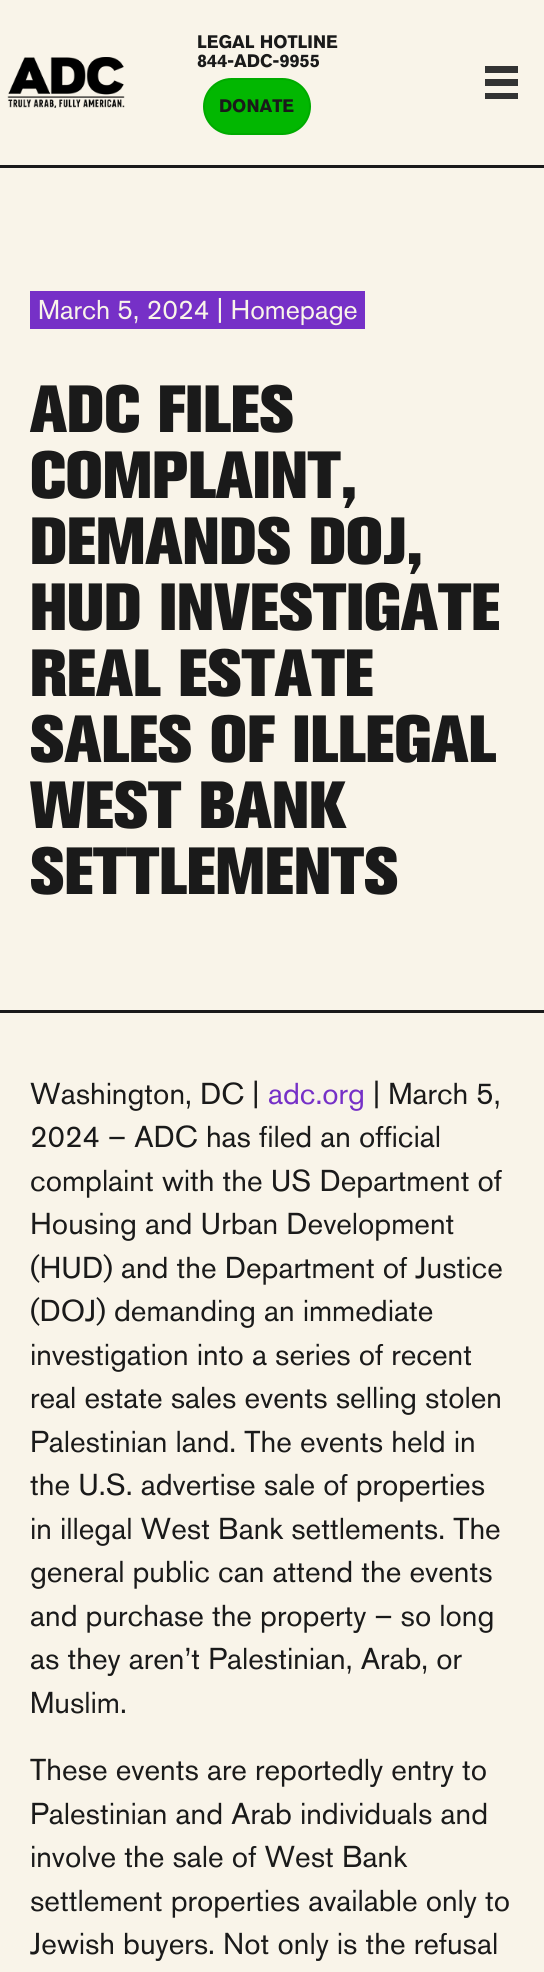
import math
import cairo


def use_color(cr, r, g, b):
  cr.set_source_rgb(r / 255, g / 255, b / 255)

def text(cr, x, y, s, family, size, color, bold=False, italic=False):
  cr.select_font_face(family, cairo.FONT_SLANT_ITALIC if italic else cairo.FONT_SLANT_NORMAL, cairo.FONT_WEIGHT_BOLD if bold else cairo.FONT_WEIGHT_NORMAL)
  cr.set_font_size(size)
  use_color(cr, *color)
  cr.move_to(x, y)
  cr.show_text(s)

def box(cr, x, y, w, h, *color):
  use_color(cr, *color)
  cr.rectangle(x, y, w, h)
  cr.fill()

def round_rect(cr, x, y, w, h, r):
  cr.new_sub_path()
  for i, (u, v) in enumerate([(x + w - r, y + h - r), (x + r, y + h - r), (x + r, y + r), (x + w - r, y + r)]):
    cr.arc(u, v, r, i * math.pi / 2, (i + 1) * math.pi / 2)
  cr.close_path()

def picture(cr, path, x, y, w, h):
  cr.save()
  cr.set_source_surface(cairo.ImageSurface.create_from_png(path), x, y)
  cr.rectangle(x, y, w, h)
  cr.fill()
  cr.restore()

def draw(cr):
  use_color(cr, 249, 244, 233)
  cr.paint()
  box(cr, 0, 165, 544, 3, 26, 26, 26)
  picture(cr, "img_01.png", 7, 57, 118, 51)
  use_color(cr, 2, 183, 1)
  round_rect(cr, 204, 79, 106, 55, 27.5)
  cr.fill_preserve()
  use_color(cr, 0, 171, 0)
  cr.stroke()
  box(cr, 485, 66, 33, 7, 51, 51, 51)
  box(cr, 485, 79, 33, 7, 51, 51, 51)
  box(cr, 485, 93, 33, 6, 51, 51, 51)
  box(cr, 0, 1010, 544, 3, 26, 26, 26)
  box(cr, 30, 291, 335, 38, 118, 48, 199)
  text(cr, 197, 48, "LEGAL HOTLINE", "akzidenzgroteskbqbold", 18, (26, 26, 26), bold=True)
  text(cr, 197, 67, "844-ADC-9955", "akzidenzgroteskbqbold", 18, (26, 26, 26), bold=True)
  text(cr, 219, 112, "DONATE", "akzidenzgroteskbqbold", 18, (26, 26, 26), bold=True)
  text(cr, 38, 319, "March 5, 2024 | Homepage", "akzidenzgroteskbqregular", 27, (249, 244, 233))
  text(cr, 30, 432, "ADC FILES", "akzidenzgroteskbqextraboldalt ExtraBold", 66, (26, 26, 26))
  text(cr, 30, 498, "COMPLAINT,", "akzidenzgroteskbqextraboldalt ExtraBold", 66, (26, 26, 26))
  text(cr, 30, 564, "DEMANDS DOJ,", "akzidenzgroteskbqextraboldalt ExtraBold", 66, (26, 26, 26))
  text(cr, 30, 630, "HUD INVESTIGATE", "akzidenzgroteskbqextraboldalt ExtraBold", 66, (26, 26, 26))
  text(cr, 30, 696, "REAL ESTATE", "akzidenzgroteskbqextraboldalt ExtraBold", 66, (26, 26, 26))
  text(cr, 30, 762, "SALES OF ILLEGAL", "akzidenzgroteskbqextraboldalt ExtraBold", 66, (26, 26, 26))
  text(cr, 30, 828, "WEST BANK", "akzidenzgroteskbqextraboldalt ExtraBold", 66, (26, 26, 26))
  text(cr, 30, 894, "SETTLEMENTS", "akzidenzgroteskbqextraboldalt ExtraBold", 66, (26, 26, 26))
  text(cr, 30, 1104, "Washington, DC |", "akzidenzgroteskbqregular", 30, (26, 26, 26))
  text(cr, 268, 1104, "adc.org", "akzidenzgroteskbqregular", 30, (118, 48, 199))
  text(cr, 373, 1104, "| March 5,", "akzidenzgroteskbqregular", 30, (26, 26, 26))
  text(cr, 30, 1147, "2024 – ADC has filed an official", "akzidenzgroteskbqregular", 30, (26, 26, 26))
  text(cr, 30, 1191, "complaint with the US Department of", "akzidenzgroteskbqregular", 30, (26, 26, 26))
  text(cr, 30, 1234, "Housing and Urban Development", "akzidenzgroteskbqregular", 30, (26, 26, 26))
  text(cr, 30, 1278, "(HUD) and the Department of Justice", "akzidenzgroteskbqregular", 30, (26, 26, 26))
  text(cr, 30, 1321, "(DOJ) demanding an immediate", "akzidenzgroteskbqregular", 30, (26, 26, 26))
  text(cr, 30, 1365, "investigation into a series of recent", "akzidenzgroteskbqregular", 30, (26, 26, 26))
  text(cr, 30, 1408, "real estate sales events selling stolen", "akzidenzgroteskbqregular", 30, (26, 26, 26))
  text(cr, 30, 1452, "Palestinian land. The events held in", "akzidenzgroteskbqregular", 30, (26, 26, 26))
  text(cr, 30, 1495, "the U.S. advertise sale of properties", "akzidenzgroteskbqregular", 30, (26, 26, 26))
  text(cr, 30, 1539, "in illegal West Bank settlements. The", "akzidenzgroteskbqregular", 30, (26, 26, 26))
  text(cr, 30, 1582, "general public can attend the events", "akzidenzgroteskbqregular", 30, (26, 26, 26))
  text(cr, 30, 1626, "and purchase the property – so long", "akzidenzgroteskbqregular", 30, (26, 26, 26))
  text(cr, 30, 1669, "as they aren’t Palestinian, Arab, or", "akzidenzgroteskbqregular", 30, (26, 26, 26))
  text(cr, 30, 1713, "Muslim.", "akzidenzgroteskbqregular", 30, (26, 26, 26))
  text(cr, 30, 1780, "These events are reportedly entry to", "akzidenzgroteskbqregular", 30, (26, 26, 26))
  text(cr, 30, 1824, "Palestinian and Arab individuals and", "akzidenzgroteskbqregular", 30, (26, 26, 26))
  text(cr, 30, 1867, "involve the sale of West Bank", "akzidenzgroteskbqregular", 30, (26, 26, 26))
  text(cr, 30, 1911, "settlement properties available only to", "akzidenzgroteskbqregular", 30, (26, 26, 26))
  text(cr, 30, 1954, "Jewish buyers. Not only is the refusal", "akzidenzgroteskbqregular", 30, (26, 26, 26))


surface = cairo.ImageSurface(cairo.FORMAT_RGB24, 544, 1972)
cr = cairo.Context(surface)
options = cairo.FontOptions()
options.set_hint_metrics(cairo.HINT_METRICS_OFF)
options.set_hint_style(cairo.HINT_STYLE_NONE)
cr.set_font_options(options)
cr.set_miter_limit(4)
draw(cr)
surface.write_to_png("out.png")
